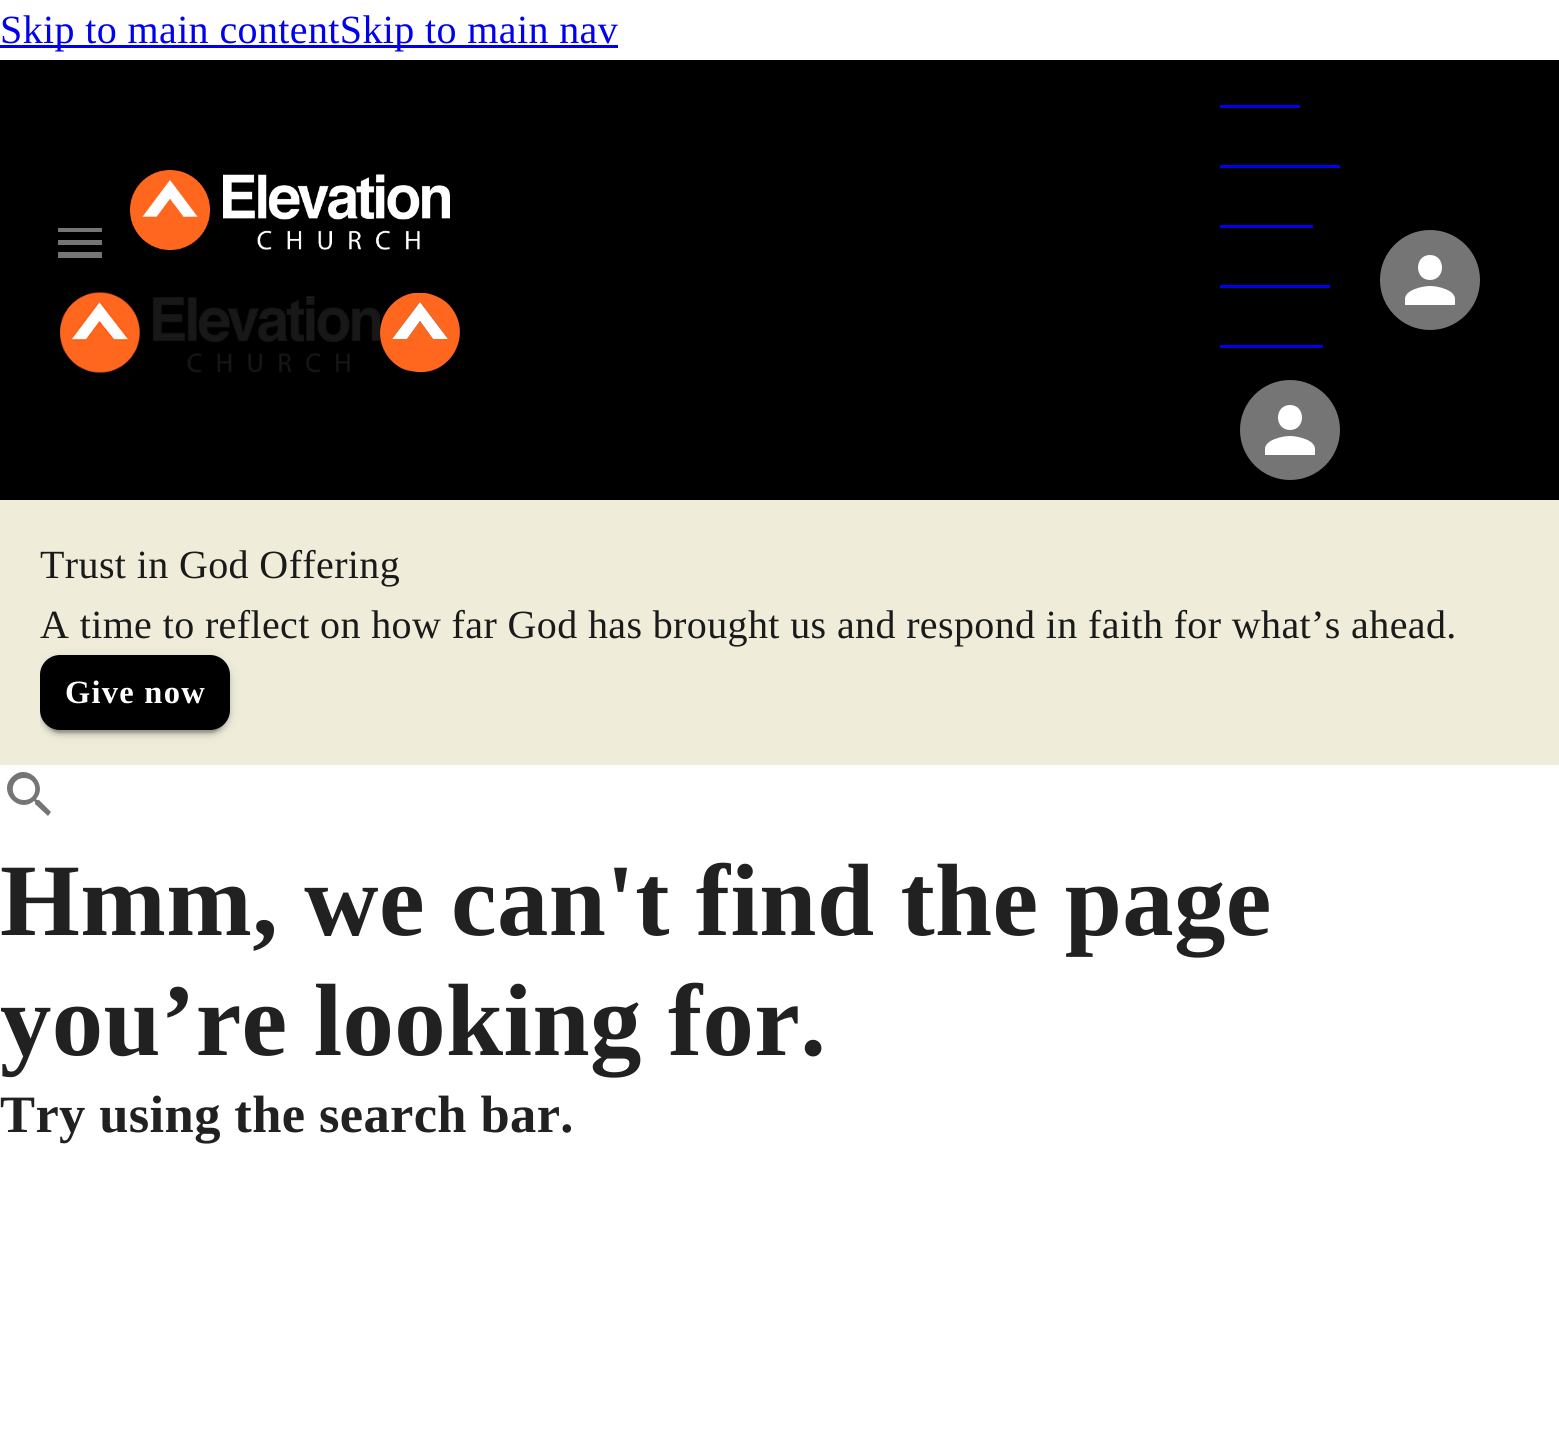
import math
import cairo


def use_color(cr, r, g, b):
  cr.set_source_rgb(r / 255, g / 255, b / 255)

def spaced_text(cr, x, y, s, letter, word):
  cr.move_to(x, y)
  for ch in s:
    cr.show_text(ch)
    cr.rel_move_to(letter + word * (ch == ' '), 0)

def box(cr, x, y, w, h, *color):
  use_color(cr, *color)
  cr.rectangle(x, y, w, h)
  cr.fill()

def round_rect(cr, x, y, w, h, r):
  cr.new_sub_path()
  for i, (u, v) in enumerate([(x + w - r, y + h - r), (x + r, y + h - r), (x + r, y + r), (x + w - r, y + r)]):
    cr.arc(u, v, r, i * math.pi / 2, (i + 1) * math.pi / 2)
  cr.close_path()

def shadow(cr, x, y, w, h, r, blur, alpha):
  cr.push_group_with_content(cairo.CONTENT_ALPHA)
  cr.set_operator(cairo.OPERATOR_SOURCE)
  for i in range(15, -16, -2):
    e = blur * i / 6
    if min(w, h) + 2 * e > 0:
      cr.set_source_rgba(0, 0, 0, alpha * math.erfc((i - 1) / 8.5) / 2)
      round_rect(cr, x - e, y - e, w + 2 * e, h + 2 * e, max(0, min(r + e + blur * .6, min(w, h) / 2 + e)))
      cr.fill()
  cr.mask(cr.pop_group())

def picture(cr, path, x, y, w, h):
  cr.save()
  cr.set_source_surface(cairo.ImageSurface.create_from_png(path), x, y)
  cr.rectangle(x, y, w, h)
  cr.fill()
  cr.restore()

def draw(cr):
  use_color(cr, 255, 255, 255)
  cr.paint()
  box(cr, 0, 45, 618, 3, 0, 0, 238)
  box(cr, 0, 60, 1559, 440, 0, 0, 0)
  use_color(cr, 117, 117, 117)
  cr.new_path()
  cr.move_to(58, 258)
  cr.line_to(102, 258)
  cr.line_to(102, 252)
  cr.line_to(58, 252)
  cr.close_path()
  cr.move_to(58, 245)
  cr.line_to(102, 245)
  cr.line_to(102, 240)
  cr.line_to(58, 240)
  cr.close_path()
  cr.move_to(58, 228)
  cr.line_to(58, 232)
  cr.line_to(102, 232)
  cr.line_to(102, 228)
  cr.close_path()
  cr.fill()
  picture(cr, "img_01.png", 130, 170, 320, 80)
  picture(cr, "img_02.png", 60, 292, 320, 81)
  cr.save()
  cr.rectangle(380, 293, 80, 80)
  cr.clip()
  use_color(cr, 255, 103, 31)
  cr.set_fill_rule(cairo.FILL_RULE_EVEN_ODD)
  cr.new_path()
  cr.move_to(430, 294)
  cr.curve_to(437, 296, 445, 300, 450, 306)
  cr.curve_to(475, 335, 449, 380, 411, 371)
  cr.curve_to(402, 370, 395, 365, 389, 358)
  cr.curve_to(365, 328, 393, 284, 430, 294)
  cr.close_path()
  cr.move_to(420, 321)
  cr.line_to(433, 339)
  cr.line_to(448, 339)
  cr.line_to(420, 302)
  cr.line_to(392, 339)
  cr.line_to(407, 339)
  cr.close_path()
  cr.fill()
  cr.restore()
  use_color(cr, 255, 255, 255)
  cr.new_path()
  cr.move_to(433, 339)
  cr.line_to(420, 321)
  cr.line_to(407, 339)
  cr.line_to(392, 339)
  cr.line_to(420, 302)
  cr.line_to(448, 339)
  cr.close_path()
  cr.fill()
  box(cr, 1220, 105, 80, 3, 0, 0, 238)
  box(cr, 1220, 165, 120, 3, 0, 0, 238)
  box(cr, 1220, 225, 93, 3, 0, 0, 238)
  box(cr, 1220, 285, 110, 3, 0, 0, 238)
  box(cr, 1220, 345, 103, 3, 0, 0, 238)
  use_color(cr, 117, 117, 117)
  cr.arc(1290, 430, 50, 0, 2 * math.pi)
  cr.fill()
  use_color(cr, 255, 255, 255)
  cr.new_path()
  cr.move_to(1290, 430)
  cr.curve_to(1306, 430, 1306, 405, 1290, 405)
  cr.curve_to(1274, 405, 1274, 430, 1290, 430)
  cr.close_path()
  cr.move_to(1290, 436)
  cr.curve_to(1282, 436, 1265, 440, 1265, 449)
  cr.line_to(1265, 455)
  cr.line_to(1315, 455)
  cr.line_to(1315, 449)
  cr.curve_to(1315, 440, 1298, 436, 1290, 436)
  cr.close_path()
  cr.fill()
  use_color(cr, 117, 117, 117)
  cr.arc(1430, 280, 50, 0, 2 * math.pi)
  cr.fill()
  use_color(cr, 255, 255, 255)
  cr.new_path()
  cr.move_to(1430, 280)
  cr.curve_to(1446, 280, 1446, 255, 1430, 255)
  cr.curve_to(1414, 255, 1414, 280, 1430, 280)
  cr.close_path()
  cr.move_to(1430, 286)
  cr.curve_to(1422, 286, 1405, 290, 1405, 299)
  cr.line_to(1405, 305)
  cr.line_to(1455, 305)
  cr.line_to(1455, 299)
  cr.curve_to(1455, 290, 1438, 286, 1430, 286)
  cr.close_path()
  cr.fill()
  box(cr, 0, 500, 1559, 265, 239, 237, 218)
  cr.save()
  cr.rectangle(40, 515, 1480, 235)
  cr.clip()
  use_color(cr, 0, 0, 0)
  shadow(cr, 40, 658, 190, 75, 20, 6, 0.12)
  shadow(cr, 40, 660, 190, 75, 20, 2.5, 0.14)
  cr.restore()
  use_color(cr, 0, 0, 0)
  shadow(cr, 45, 668, 180, 65, 15, 1, 0.2)
  use_color(cr, 0, 0, 0)
  round_rect(cr, 40, 655, 190, 75, 20)
  cr.fill()
  use_color(cr, 117, 117, 117)
  cr.new_path()
  cr.move_to(39, 800)
  cr.line_to(37, 800)
  cr.line_to(36, 799)
  cr.curve_to(49, 784, 27, 762, 12, 777)
  cr.curve_to(-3, 792, 19, 814, 34, 801)
  cr.line_to(35, 802)
  cr.line_to(35, 804)
  cr.line_to(48, 816)
  cr.line_to(51, 812)
  cr.close_path()
  cr.move_to(24, 800)
  cr.curve_to(9, 800, 9, 778, 24, 778)
  cr.curve_to(39, 778, 39, 800, 24, 800)
  cr.fill()
  cr.select_font_face("Liberation Serif")
  cr.set_font_size(40)
  use_color(cr, 0, 0, 238)
  spaced_text(cr, 0, 43, "Skip to main contentSkip to main nav", 0.38, 0)
  use_color(cr, 26, 26, 26)
  spaced_text(cr, 40, 578, "Trust in God Offering", 0.38, 0)
  spaced_text(cr, 40, 638, "A time to reflect on how far God has brought us and respond in faith for what’s ahead.", 0.38, 0)
  cr.select_font_face("Liberation Serif", cairo.FONT_SLANT_NORMAL, cairo.FONT_WEIGHT_BOLD)
  cr.set_font_size(32.5)
  use_color(cr, 255, 255, 255)
  spaced_text(cr, 65, 703, "Give now", 1.25, 0)
  cr.set_font_size(102.75)
  use_color(cr, 33, 33, 33)
  spaced_text(cr, 0, 935, "Hmm, we can't find the page", 0.38, 0)
  spaced_text(cr, 0, 1055, "you’re looking for.", 0.38, 0)
  cr.set_font_size(52.5)
  spaced_text(cr, 0, 1132, "Try using the search bar.", 0.38, 0)


surface = cairo.ImageSurface(cairo.FORMAT_RGB24, 1559, 1451)
cr = cairo.Context(surface)
options = cairo.FontOptions()
options.set_hint_metrics(cairo.HINT_METRICS_OFF)
options.set_hint_style(cairo.HINT_STYLE_NONE)
cr.set_font_options(options)
cr.set_miter_limit(4)
draw(cr)
surface.write_to_png("out.png")
